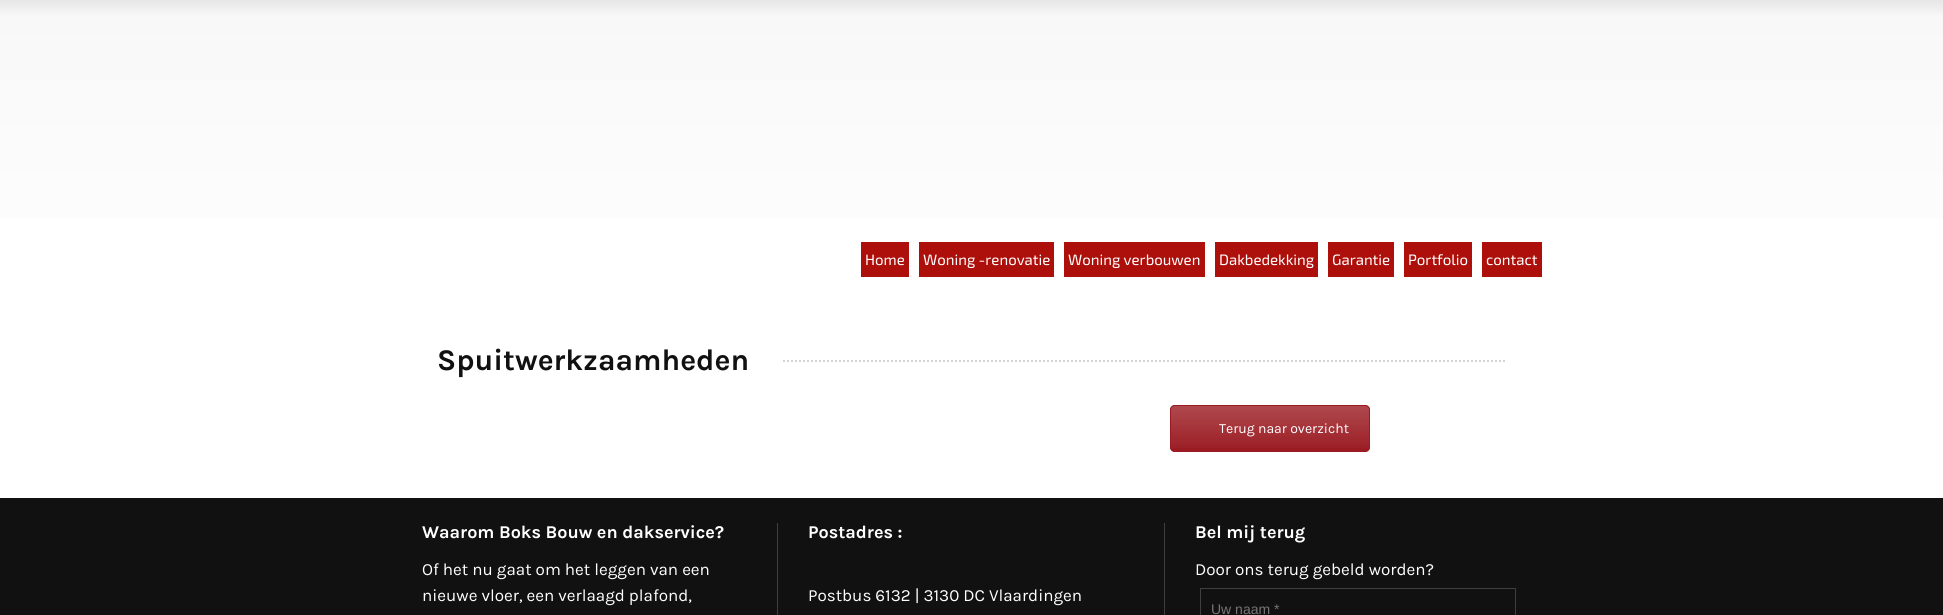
import math
import cairo


def use_color(cr, r, g, b):
  cr.set_source_rgb(r / 255, g / 255, b / 255)

def text(cr, x, y, s, family, size, color, bold=False, italic=False):
  cr.select_font_face(family, cairo.FONT_SLANT_ITALIC if italic else cairo.FONT_SLANT_NORMAL, cairo.FONT_WEIGHT_BOLD if bold else cairo.FONT_WEIGHT_NORMAL)
  cr.set_font_size(size)
  use_color(cr, *color)
  cr.move_to(x, y)
  cr.show_text(s)

def box(cr, x, y, w, h, *color):
  use_color(cr, *color)
  cr.rectangle(x, y, w, h)
  cr.fill()

def round_rect(cr, x, y, w, h, r):
  cr.new_sub_path()
  for i, (u, v) in enumerate([(x + w - r, y + h - r), (x + r, y + h - r), (x + r, y + r), (x + w - r, y + r)]):
    cr.arc(u, v, r, i * math.pi / 2, (i + 1) * math.pi / 2)
  cr.close_path()

def draw(cr):
  use_color(cr, 255, 255, 255)
  cr.paint()
  gradient = cairo.LinearGradient(972, 0, 972, 332)
  gradient.add_color_stop_rgba(0, 1, 1, 1, 1)
  gradient.add_color_stop_rgba(0, 0.902, 0.902, 0.902, 1)
  gradient.add_color_stop_rgba(0.05, 0.973, 0.973, 0.973, 1)
  gradient.add_color_stop_rgba(1, 1, 1, 1, 1)
  cr.set_source(gradient)
  cr.rectangle(0, 0, 1943, 219)
  cr.fill()
  box(cr, 861, 242, 48, 35, 173, 15, 10)
  box(cr, 919, 242, 135, 35, 173, 15, 10)
  box(cr, 1064, 242, 141, 35, 173, 15, 10)
  box(cr, 1215, 242, 103, 35, 173, 15, 10)
  box(cr, 1328, 242, 66, 35, 173, 15, 10)
  box(cr, 1404, 242, 68, 35, 173, 15, 10)
  box(cr, 1482, 242, 60, 35, 173, 15, 10)
  cr.save()
  cr.rectangle(437, 340, 1070, 65)
  cr.clip()
  cr.new_path()
  cr.move_to(783, 361)
  cr.line_to(1783, 361)
  use_color(cr, 211, 211, 211)
  cr.set_dash([2, 2])
  cr.stroke()
  cr.restore()
  use_color(cr, 154, 27, 34)
  round_rect(cr, 1170, 405, 200, 47, 5)
  cr.fill()
  cr.save()
  round_rect(cr, 1170, 405, 200, 47, 5)
  cr.clip()
  gradient = cairo.LinearGradient(1270, 406, 1270, 451)
  gradient.add_color_stop_rgba(0, 1, 1, 1, 0.2)
  gradient.add_color_stop_rgba(1, 1, 1, 1, 0.01)
  cr.set_source(gradient)
  cr.rectangle(1170, 406, 200, 42)
  cr.fill()
  cr.restore()
  round_rect(cr, 1170.5, 405.5, 199, 46, 4.5)
  cr.set_line_width(1)
  cr.stroke()
  box(cr, 0, 498, 1943, 117, 17, 17, 17)
  box(cr, 777, 523, 1, 92, 63, 63, 63)
  box(cr, 1164, 523, 1, 92, 63, 63, 63)
  cr.rectangle(1200.5, 588.5, 315, 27)
  cr.stroke()
  text(cr, 865, 265, "Home", "Exo 2", 15, (255, 255, 255))
  text(cr, 923, 265, "Woning -renovatie", "Exo 2", 15, (255, 255, 255))
  text(cr, 1068, 265, "Woning verbouwen", "Exo 2", 15, (255, 255, 255))
  text(cr, 1219, 265, "Dakbedekking", "Exo 2", 15, (255, 255, 255))
  text(cr, 1332, 265, "Garantie", "Exo 2", 15, (255, 255, 255))
  text(cr, 1408, 265, "Portfolio", "Exo 2", 15, (255, 255, 255))
  text(cr, 1486, 265, "contact", "Exo 2", 15, (255, 255, 255))
  text(cr, 437, 370, "Spuitwerkzaamheden", "Karla", 30, (17, 17, 17), bold=True)
  text(cr, 1219, 433, "Terug naar overzicht", "Karla", 14, (255, 255, 255))
  text(cr, 422, 538, "Waarom Boks Bouw en dakservice?", "Karla", 18, (255, 255, 255), bold=True)
  text(cr, 422, 575, "Of het nu gaat om het leggen van een", "Karla", 17, (255, 255, 255))
  text(cr, 422, 601, "nieuwe vloer, een verlaagd plafond,", "Karla", 17, (255, 255, 255))
  text(cr, 808, 538, "Postadres :", "Karla", 18, (255, 255, 255), bold=True)
  text(cr, 808, 601, "Postbus 6132 | 3130 DC Vlaardingen", "Karla", 17, (255, 255, 255))
  text(cr, 1195, 538, "Bel mij terug", "Karla", 18, (255, 255, 255), bold=True)
  text(cr, 1195, 575, "Door ons terug gebeld worden?", "Karla", 17, (255, 255, 255))
  text(cr, 1211, 614, "Uw naam *", "Liberation Sans", 14, (117, 117, 117))


surface = cairo.ImageSurface(cairo.FORMAT_RGB24, 1943, 615)
cr = cairo.Context(surface)
options = cairo.FontOptions()
options.set_hint_metrics(cairo.HINT_METRICS_OFF)
options.set_hint_style(cairo.HINT_STYLE_NONE)
cr.set_font_options(options)
cr.set_miter_limit(4)
draw(cr)
surface.write_to_png("out.png")
